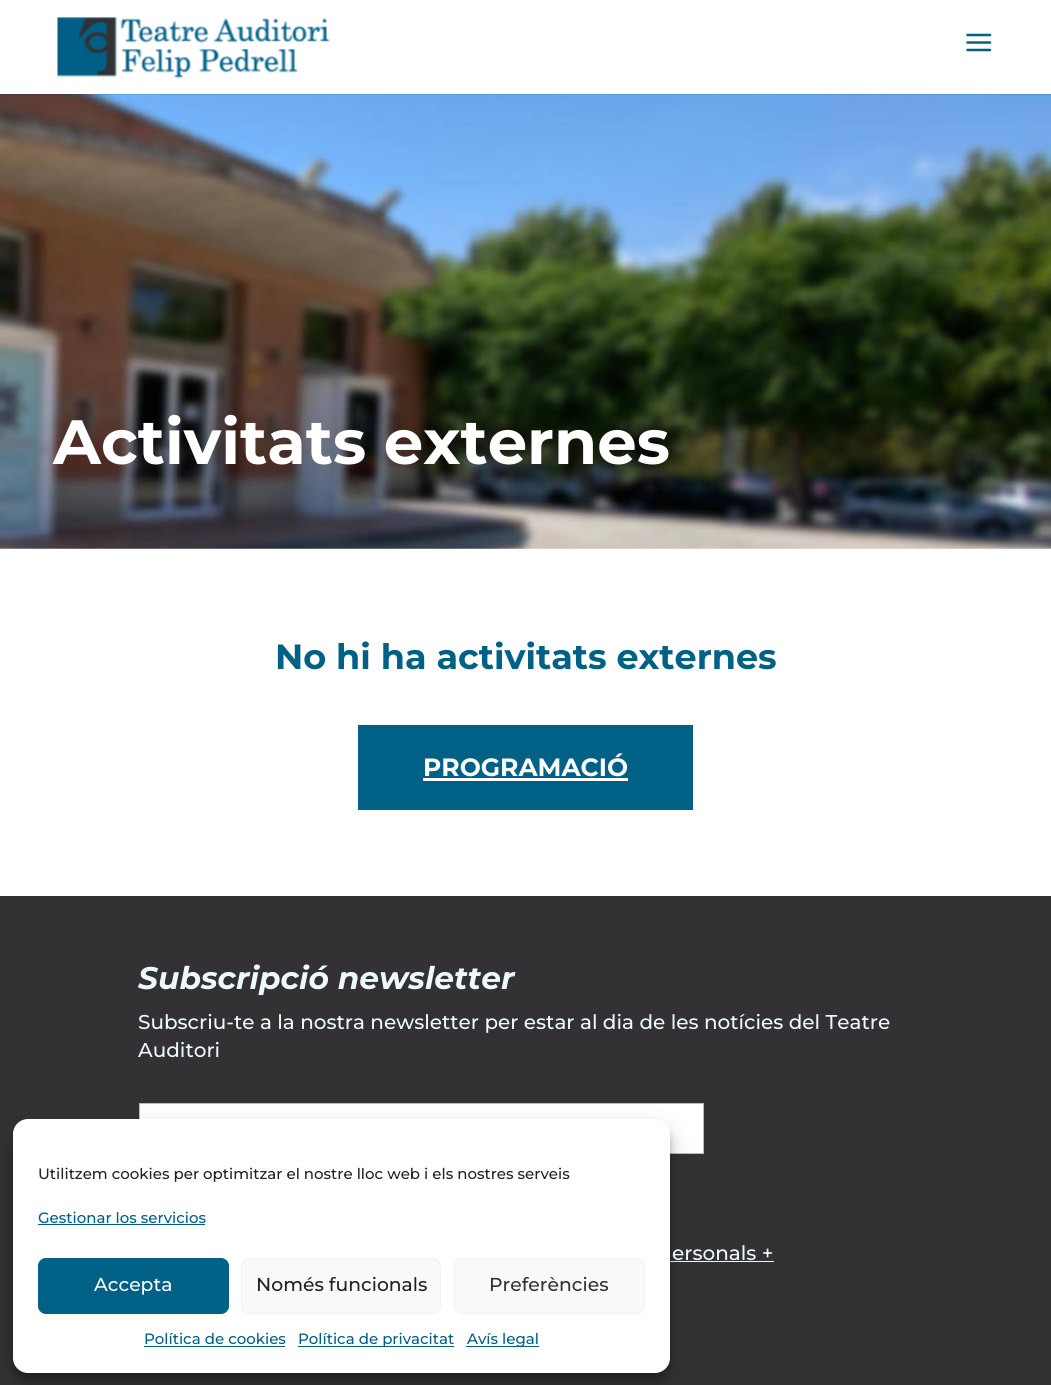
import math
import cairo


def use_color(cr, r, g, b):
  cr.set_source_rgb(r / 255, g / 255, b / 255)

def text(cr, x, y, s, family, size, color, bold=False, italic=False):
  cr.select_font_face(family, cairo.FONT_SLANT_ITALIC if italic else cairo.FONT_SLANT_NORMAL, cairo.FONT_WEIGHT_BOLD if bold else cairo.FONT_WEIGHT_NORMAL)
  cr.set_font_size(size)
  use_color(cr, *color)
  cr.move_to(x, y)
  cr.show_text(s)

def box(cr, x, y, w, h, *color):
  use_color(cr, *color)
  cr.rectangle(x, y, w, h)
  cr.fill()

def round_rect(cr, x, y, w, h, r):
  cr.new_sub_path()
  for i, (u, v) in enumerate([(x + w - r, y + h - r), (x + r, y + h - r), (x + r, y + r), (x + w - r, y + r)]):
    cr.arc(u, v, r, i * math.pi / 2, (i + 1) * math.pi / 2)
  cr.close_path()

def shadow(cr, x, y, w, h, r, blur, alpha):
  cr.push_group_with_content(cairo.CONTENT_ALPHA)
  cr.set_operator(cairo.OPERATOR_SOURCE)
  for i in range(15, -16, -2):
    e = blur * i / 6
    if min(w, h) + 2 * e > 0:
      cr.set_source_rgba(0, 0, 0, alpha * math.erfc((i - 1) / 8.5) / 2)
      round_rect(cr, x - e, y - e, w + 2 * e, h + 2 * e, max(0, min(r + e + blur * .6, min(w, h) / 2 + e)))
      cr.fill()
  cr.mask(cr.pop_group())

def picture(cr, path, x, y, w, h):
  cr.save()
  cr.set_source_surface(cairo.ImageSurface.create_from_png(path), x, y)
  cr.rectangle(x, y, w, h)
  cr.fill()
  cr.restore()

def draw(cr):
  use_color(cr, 255, 255, 255)
  cr.paint()
  picture(cr, "img_03.png", 0, 94, 1051, 455)
  cr.set_source_rgba(0, 0, 0, 0.1)
  cr.rectangle(0, 94, 1051, 1)
  cr.fill()
  picture(cr, "img_01.png", 57, 17, 273, 62)
  picture(cr, "img_02.png", 966, 33, 26, 19)
  box(cr, 358, 725, 335, 85, 0, 96, 134)
  box(cr, 423, 778, 205, 3, 255, 255, 255)
  box(cr, 0, 896, 1051, 489, 51, 49, 51)
  use_color(cr, 255, 255, 255)
  cr.rectangle(139.5, 1103.5, 564, 50)
  cr.fill_preserve()
  use_color(cr, 187, 187, 187)
  cr.set_line_width(1)
  cr.stroke()
  box(cr, 670, 1261, 104, 1, 236, 250, 255)
  use_color(cr, 0, 0, 0)
  shadow(cr, 13, 1126, 657, 254, 15, 4, 0.23)
  shadow(cr, 13, 1131, 657, 254, 15, 12.5, 0.19)
  use_color(cr, 255, 255, 255)
  round_rect(cr, 13, 1119, 657, 254, 15)
  cr.fill()
  box(cr, 38, 1224, 167, 1, 0, 96, 134)
  round_rect(cr, 38.5, 1258.5, 190, 55, 7.5)
  cr.fill_preserve()
  cr.stroke()
  use_color(cr, 249, 249, 249)
  round_rect(cr, 241.5, 1258.5, 199, 55, 7.5)
  cr.fill_preserve()
  use_color(cr, 242, 242, 242)
  cr.stroke()
  use_color(cr, 249, 249, 249)
  round_rect(cr, 454.5, 1258.5, 190, 55, 7.5)
  cr.fill_preserve()
  use_color(cr, 242, 242, 242)
  cr.stroke()
  box(cr, 144, 1346, 141, 1, 0, 96, 134)
  box(cr, 298, 1346, 156, 1, 0, 96, 134)
  box(cr, 466, 1346, 73, 1, 0, 96, 134)
  text(cr, 53, 464, "Activitats externes", "Montserrat Thin", 62.5, (255, 255, 255))
  text(cr, 275, 669, "No hi ha activitats externes", "Montserrat Thin", 35, (0, 96, 134))
  text(cr, 423, 776, "PROGRAMACIÓ", "Montserrat Thin", 25, (255, 255, 255))
  text(cr, 138, 989, "Subscripció newsletter", "Montserrat Thin", 31.25, (236, 250, 255), italic=True)
  text(cr, 138, 1029, "Subscriu-te a la nostra newsletter per estar al dia de les notícies del Teatre", "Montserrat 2 Thin", 20, (236, 250, 255))
  text(cr, 138, 1057, "Auditori", "Montserrat 2 Thin", 20, (236, 250, 255))
  text(cr, 672, 1260, "ersonals +", "Montserrat 2 Thin", 20, (236, 250, 255))
  text(cr, 38, 1179, "Utilitzem cookies per optimitzar el nostre lloc web i els nostres serveis", "Montserrat 2 Thin", 15, (34, 34, 34))
  text(cr, 38, 1223, "Gestionar los servicios", "Montserrat 2 Thin", 15, (0, 96, 134))
  text(cr, 94, 1291, "Accepta", "Montserrat 2 Thin", 18.75, (255, 255, 255))
  text(cr, 256, 1291, "Només funcionals", "Montserrat 2 Thin", 18.75, (34, 34, 34))
  text(cr, 489, 1291, "Preferències", "Montserrat 2 Thin", 18.75, (51, 51, 51))
  text(cr, 144, 1344, "Política de cookies", "Montserrat 2 Thin", 15, (0, 96, 134))
  text(cr, 298, 1344, "Política de privacitat", "Montserrat 2 Thin", 15, (0, 96, 134))
  text(cr, 467, 1344, "Avís legal", "Montserrat 2 Thin", 15, (0, 96, 134))


surface = cairo.ImageSurface(cairo.FORMAT_RGB24, 1051, 1385)
cr = cairo.Context(surface)
options = cairo.FontOptions()
options.set_hint_metrics(cairo.HINT_METRICS_OFF)
options.set_hint_style(cairo.HINT_STYLE_NONE)
cr.set_font_options(options)
cr.set_miter_limit(4)
draw(cr)
surface.write_to_png("out.png")
